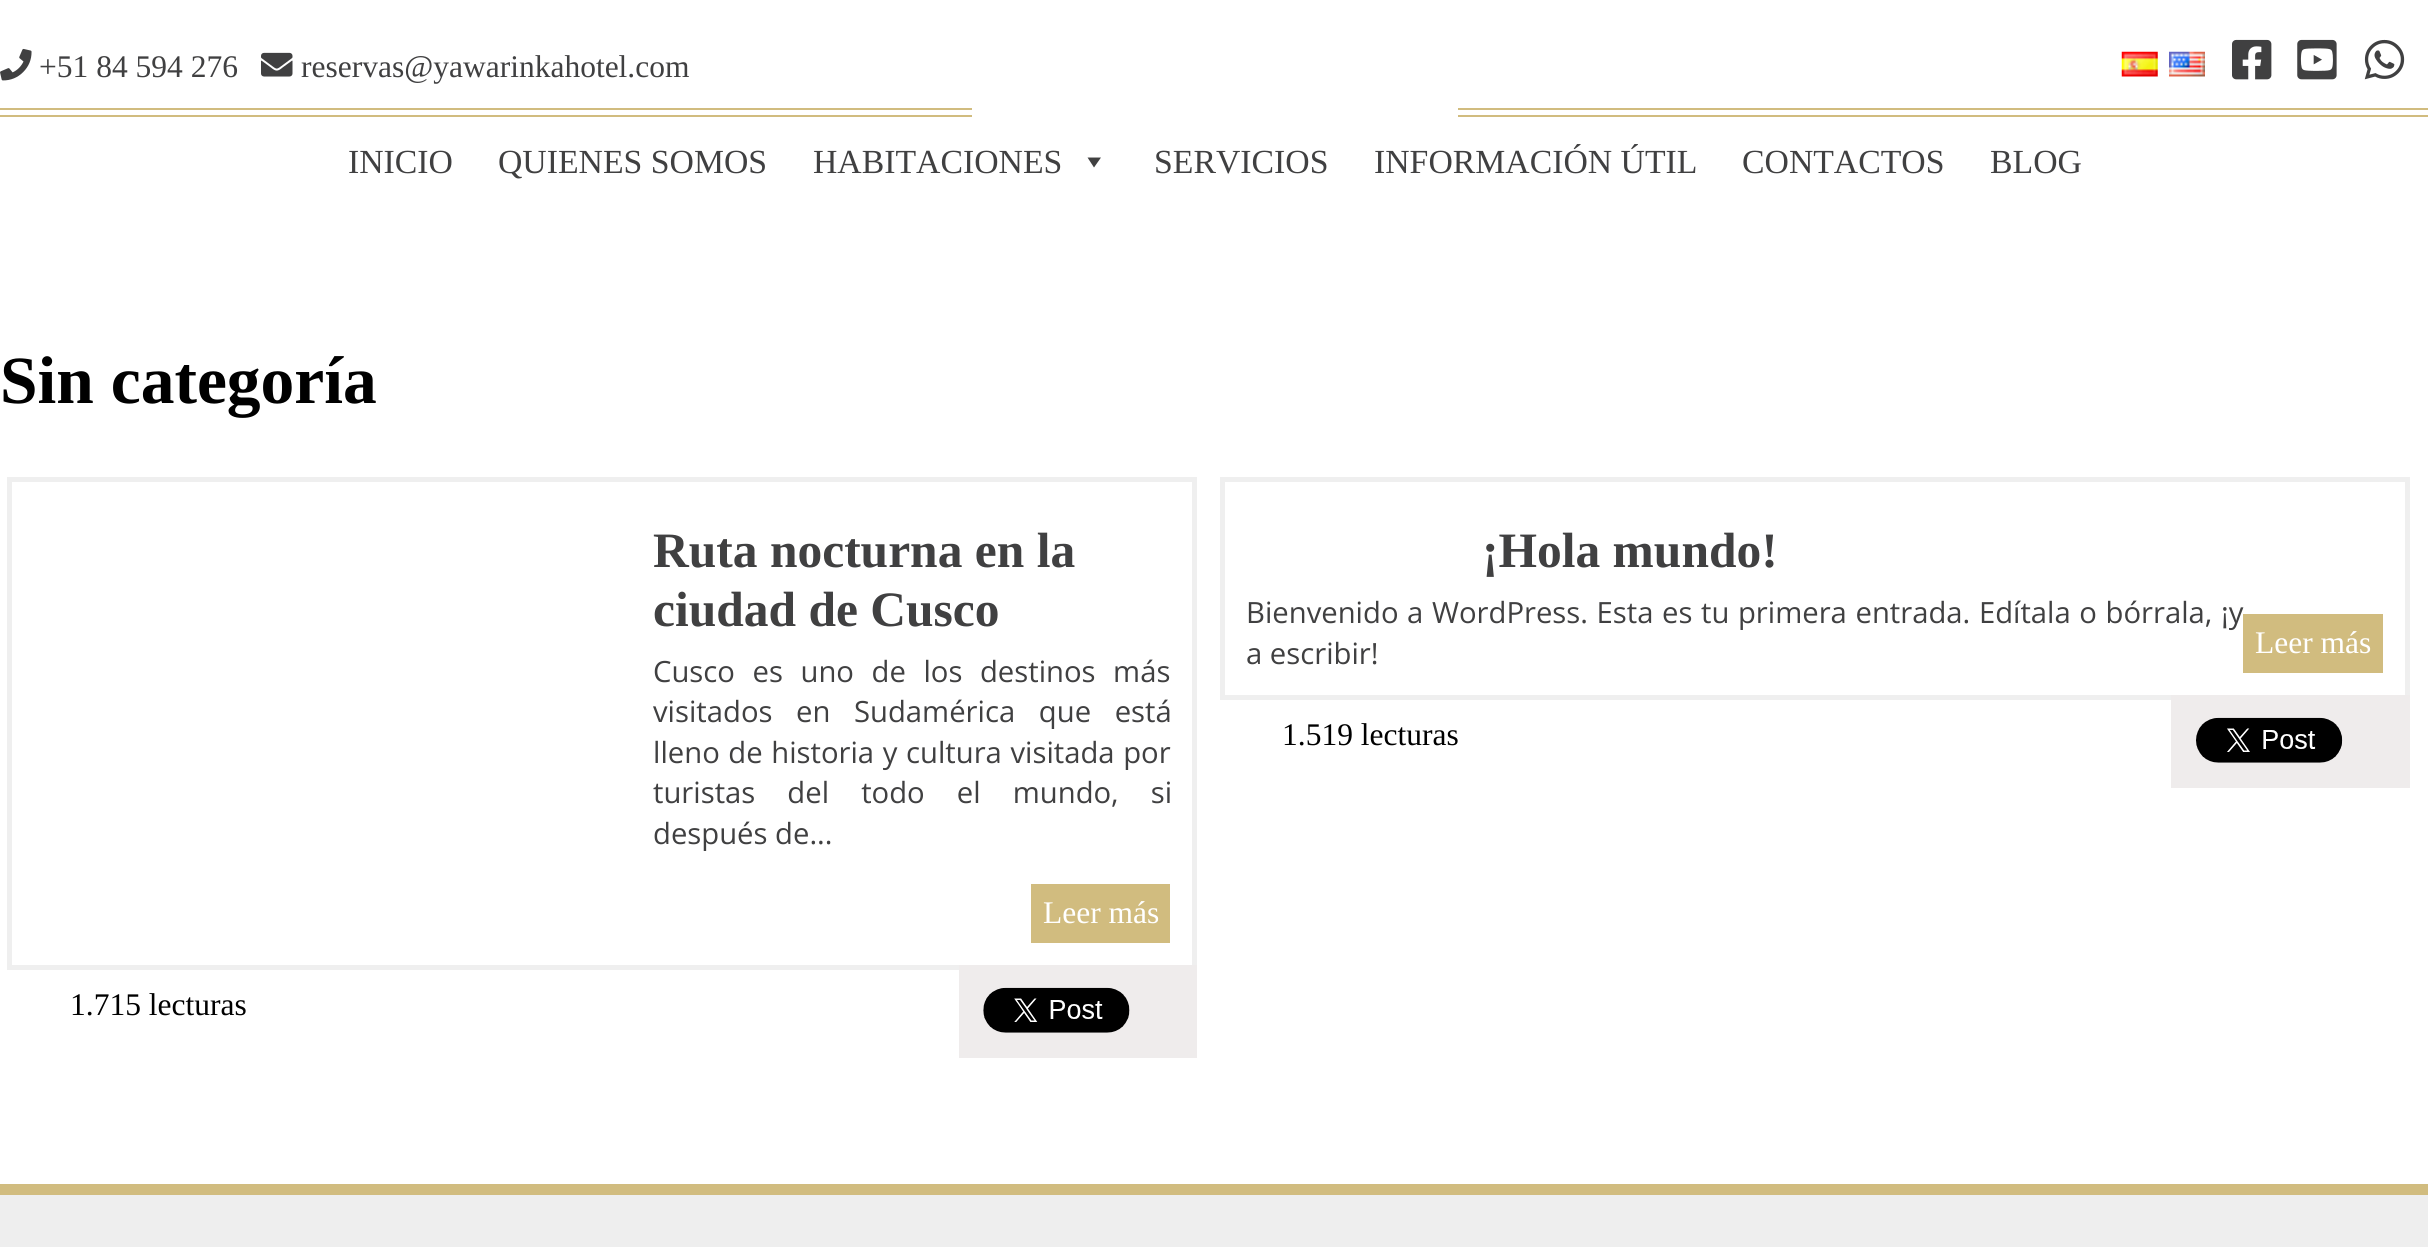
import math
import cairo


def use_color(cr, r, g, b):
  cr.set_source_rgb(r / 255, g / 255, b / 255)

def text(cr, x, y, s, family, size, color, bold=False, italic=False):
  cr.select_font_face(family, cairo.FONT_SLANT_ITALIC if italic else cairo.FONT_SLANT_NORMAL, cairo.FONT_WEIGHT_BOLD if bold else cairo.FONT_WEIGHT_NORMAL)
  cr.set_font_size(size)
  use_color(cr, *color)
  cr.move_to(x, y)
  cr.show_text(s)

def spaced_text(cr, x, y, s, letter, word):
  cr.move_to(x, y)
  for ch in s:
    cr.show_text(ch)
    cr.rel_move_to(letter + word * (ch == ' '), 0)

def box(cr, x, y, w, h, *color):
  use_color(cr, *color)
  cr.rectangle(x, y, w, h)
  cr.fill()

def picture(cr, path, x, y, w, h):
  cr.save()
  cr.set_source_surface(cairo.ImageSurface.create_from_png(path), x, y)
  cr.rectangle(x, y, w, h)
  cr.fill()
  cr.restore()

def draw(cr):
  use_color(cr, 255, 255, 255)
  cr.paint()
  box(cr, 0, 108, 972, 2, 209, 188, 127)
  box(cr, 0, 115, 972, 2, 209, 188, 127)
  picture(cr, "img_01.png", 0, 48, 32, 33)
  picture(cr, "img_02.png", 261, 52, 32, 25)
  box(cr, 1458, 108, 970, 2, 209, 188, 127)
  box(cr, 1458, 115, 970, 2, 209, 188, 127)
  picture(cr, "img_03.png", 2121, 51, 37, 26)
  picture(cr, "img_04.png", 2169, 51, 36, 26)
  picture(cr, "img_05.png", 2232, 39, 40, 41)
  picture(cr, "img_06.png", 2297, 39, 40, 41)
  picture(cr, "img_07.png", 2364, 39, 41, 41)
  use_color(cr, 64, 64, 65)
  cr.new_path()
  cr.move_to(1101, 157.5)
  cr.line_to(1094, 167.5)
  cr.line_to(1087.5, 157.5)
  cr.close_path()
  cr.fill()
  cr.rectangle(9.5, 479.5, 1185, 488)
  use_color(cr, 239, 239, 239)
  cr.set_line_width(5)
  cr.stroke()
  box(cr, 1031, 884, 139, 59, 209, 188, 127)
  box(cr, 959, 965, 238, 93, 239, 236, 236)
  picture(cr, "img_08.png", 983, 987, 147, 46)
  cr.rectangle(1222.5, 479.5, 1185, 218)
  use_color(cr, 239, 239, 239)
  cr.stroke()
  box(cr, 2171, 695, 239, 93, 239, 236, 236)
  picture(cr, "img_09.png", 2196, 717, 147, 46)
  box(cr, 0, 1195, 2428, 52, 238, 238, 238)
  box(cr, 0, 1184, 2428, 11, 209, 188, 127)
  text(cr, 39, 77, "+51 84 594 276", "Liberation Serif", 31.5, (64, 64, 65))
  text(cr, 301, 77, "reservas@yawarinkahotel.com", "Liberation Serif", 31.5, (64, 64, 65))
  text(cr, 348, 173, "INICIO", "Liberation Serif", 33.75, (64, 64, 65))
  text(cr, 498, 173, "QUIENES SOMOS", "Liberation Serif", 33.75, (64, 64, 65))
  text(cr, 813, 173, "HABITACIONES", "Liberation Serif", 33.75, (64, 64, 65))
  text(cr, 1154, 173, "SERVICIOS", "Liberation Serif", 33.75, (64, 64, 65))
  text(cr, 1374, 173, "INFORMACIÓN ÚTIL", "Liberation Serif", 33.75, (64, 64, 65))
  text(cr, 1742, 173, "CONTACTOS", "Liberation Serif", 33.75, (64, 64, 65))
  text(cr, 1990, 173, "BLOG", "Liberation Serif", 33.75, (64, 64, 65))
  text(cr, 0, 403, "Sin categoría", "Liberation Serif", 67.5, (0, 0, 0), bold=True)
  text(cr, 653, 567, "Ruta nocturna en la", "Liberation Serif", 49.5, (64, 64, 65), bold=True)
  text(cr, 653, 626, "ciudad de Cusco", "Liberation Serif", 49.5, (64, 64, 65), bold=True)
  cr.select_font_face("Open Sans")
  cr.set_font_size(29.25)
  spaced_text(cr, 653, 682, "Cusco es uno de los destinos más", 0, 10)
  spaced_text(cr, 653, 722, "visitados en Sudamérica que está", 0, 16)
  spaced_text(cr, 653, 763, "lleno de historia y cultura visitada por", 0, 1)
  spaced_text(cr, 653, 803, "turistas del todo el mundo, si", 0, 24.5)
  text(cr, 653, 844, "después de...", "Open Sans", 29.25, (64, 64, 65))
  text(cr, 1043, 923, "Leer más", "Liberation Serif", 31.5, (255, 255, 255))
  text(cr, 70, 1015, "1.715 lecturas", "Liberation Serif", 31.5, (0, 0, 0))
  text(cr, 1482, 567, "¡Hola mundo!", "Liberation Serif", 49.5, (64, 64, 65), bold=True)
  cr.select_font_face("Open Sans")
  cr.set_font_size(29.25)
  spaced_text(cr, 1246, 623, "Bienvenido a WordPress. Esta es tu primera entrada. Edítala o bórrala, ¡y", 0, 1)
  text(cr, 1246, 664, "a escribir!", "Open Sans", 29.25, (64, 64, 65))
  box(cr, 2243, 614, 140, 59, 209, 188, 127)
  text(cr, 2255, 653, "Leer más", "Liberation Serif", 31.5, (255, 255, 255))
  text(cr, 1282, 745, "1.519 lecturas", "Liberation Serif", 31.5, (0, 0, 0))


surface = cairo.ImageSurface(cairo.FORMAT_RGB24, 2428, 1247)
cr = cairo.Context(surface)
options = cairo.FontOptions()
options.set_hint_metrics(cairo.HINT_METRICS_OFF)
options.set_hint_style(cairo.HINT_STYLE_NONE)
cr.set_font_options(options)
cr.set_miter_limit(4)
draw(cr)
surface.write_to_png("out.png")
